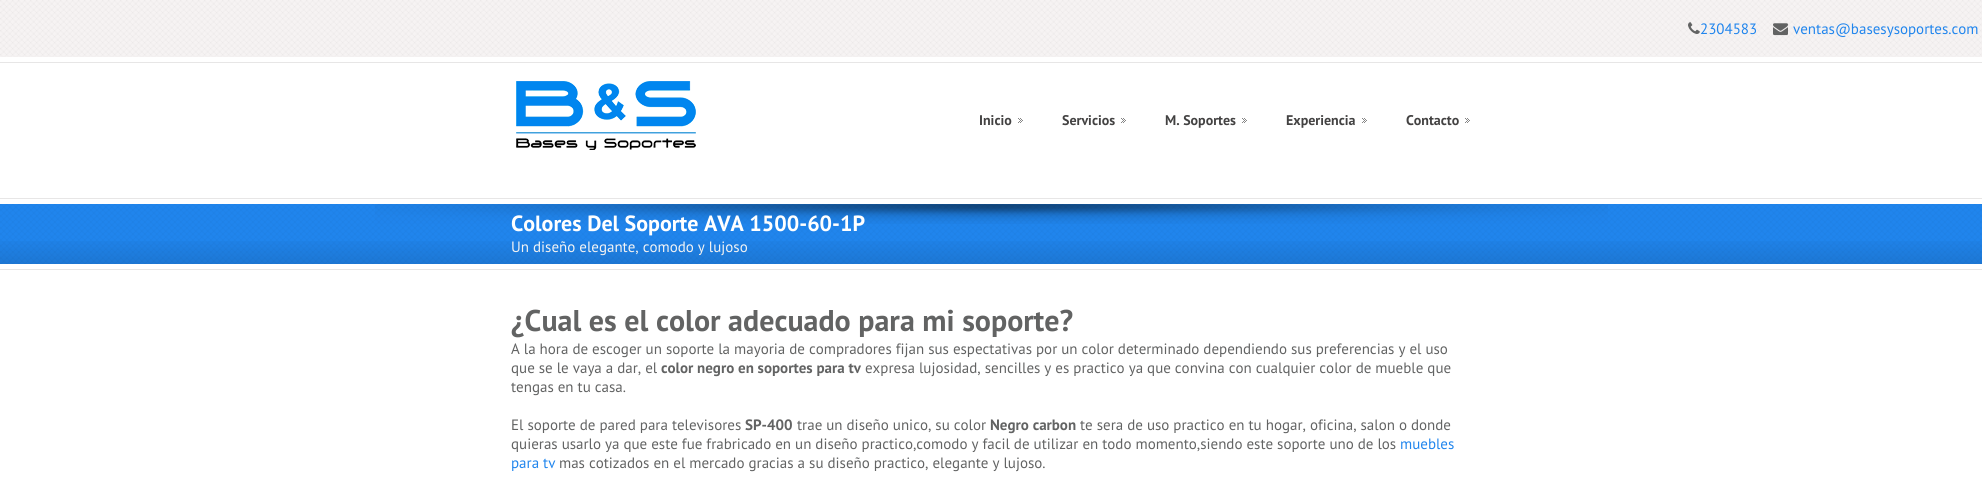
import math
import cairo


def use_color(cr, r, g, b):
  cr.set_source_rgb(r / 255, g / 255, b / 255)

def text(cr, x, y, s, family, size, color, bold=False, italic=False):
  cr.select_font_face(family, cairo.FONT_SLANT_ITALIC if italic else cairo.FONT_SLANT_NORMAL, cairo.FONT_WEIGHT_BOLD if bold else cairo.FONT_WEIGHT_NORMAL)
  cr.set_font_size(size)
  use_color(cr, *color)
  cr.move_to(x, y)
  cr.show_text(s)

def box(cr, x, y, w, h, *color):
  use_color(cr, *color)
  cr.rectangle(x, y, w, h)
  cr.fill()

def picture(cr, path, x, y, w, h):
  cr.save()
  cr.set_source_surface(cairo.ImageSurface.create_from_png(path), x, y)
  cr.rectangle(x, y, w, h)
  cr.fill()
  cr.restore()

def draw(cr):
  use_color(cr, 255, 255, 255)
  cr.paint()
  picture(cr, "img_01.png", 0, 0, 1982, 57)
  picture(cr, "img_02.png", 1688, 22, 12, 12)
  picture(cr, "img_03.png", 1773, 23, 15, 13)
  box(cr, 0, 62, 1982, 1, 231, 230, 230)
  picture(cr, "img_04.png", 516, 81, 180, 69)
  picture(cr, "img_05.png", 1018, 118, 5, 5)
  picture(cr, "img_05.png", 1121, 118, 5, 5)
  picture(cr, "img_05.png", 1242, 118, 5, 5)
  picture(cr, "img_05.png", 1362, 118, 5, 5)
  picture(cr, "img_05.png", 1465, 118, 5, 5)
  box(cr, 0, 204, 1982, 60, 32, 133, 237)
  picture(cr, "img_06.png", 0, 204, 1982, 60)
  box(cr, 0, 198, 1982, 1, 231, 230, 230)
  picture(cr, "img_07.png", 375, 204, 1233, 20)
  box(cr, 0, 269, 1982, 1, 231, 230, 230)
  text(cr, 1700, 34, "2304583", "PT Sans", 15, (32, 133, 237))
  text(cr, 1793, 34, "ventas@basesysoportes.com", "PT Sans", 15, (32, 133, 237))
  text(cr, 979, 125, "Inicio", "PT Sans", 14, (67, 66, 66), bold=True)
  text(cr, 1062, 125, "Servicios", "PT Sans", 14, (67, 66, 66), bold=True)
  text(cr, 1165, 125, "M. Soportes", "PT Sans", 14, (67, 66, 66), bold=True)
  text(cr, 1286, 125, "Experiencia", "PT Sans", 14, (67, 66, 66), bold=True)
  text(cr, 1406, 125, "Contacto", "PT Sans", 14, (67, 66, 66), bold=True)
  text(cr, 511, 231, "Colores Del Soporte AVA 1500-60-1P", "PT Sans", 22, (255, 255, 255), bold=True)
  text(cr, 511, 252, "Un diseño elegante, comodo y lujoso", "PT Sans", 15, (255, 255, 255))
  picture(cr, "img_08.png", 0, 241, 1982, 23)
  text(cr, 511, 331, "¿Cual es el color adecuado para mi soporte?", "PT Sans", 30, (98, 99, 99), bold=True)
  text(cr, 511, 354, "A la hora de escoger un soporte la mayoria de compradores fijan sus espectativas por un color determinado dependiendo sus preferencias y el uso", "PT Sans", 15, (98, 99, 99))
  text(cr, 511, 373, "que se le vaya a dar, el", "PT Sans", 15, (98, 99, 99))
  text(cr, 661, 373, "color negro en soportes para tv", "PT Sans", 15, (98, 99, 99), bold=True)
  text(cr, 865, 373, "expresa lujosidad, sencilles y es practico ya que convina con cualquier color de mueble que", "PT Sans", 15, (98, 99, 99))
  text(cr, 511, 392, "tengas en tu casa.", "PT Sans", 15, (98, 99, 99))
  text(cr, 511, 430, "El soporte de pared para televisores", "PT Sans", 15, (98, 99, 99))
  text(cr, 745, 430, "SP-400", "PT Sans", 15, (98, 99, 99), bold=True)
  text(cr, 797, 430, "trae un diseño unico, su color", "PT Sans", 15, (98, 99, 99))
  text(cr, 990, 430, "Negro carbon", "PT Sans", 15, (98, 99, 99), bold=True)
  text(cr, 1080, 430, "te sera de uso practico en tu hogar, oficina, salon o donde", "PT Sans", 15, (98, 99, 99))
  text(cr, 511, 449, "quieras usarlo ya que este fue frabricado en un diseño practico,comodo y facil de utilizar en todo momento,siendo este soporte uno de los", "PT Sans", 15, (98, 99, 99))
  text(cr, 1400, 449, "muebles", "PT Sans", 15, (32, 133, 237))
  text(cr, 511, 468, "para tv", "PT Sans", 15, (32, 133, 237))
  text(cr, 559, 468, "mas cotizados en el mercado gracias a su diseño practico, elegante y lujoso.", "PT Sans", 15, (98, 99, 99))


surface = cairo.ImageSurface(cairo.FORMAT_RGB24, 1982, 501)
cr = cairo.Context(surface)
options = cairo.FontOptions()
options.set_hint_metrics(cairo.HINT_METRICS_OFF)
options.set_hint_style(cairo.HINT_STYLE_NONE)
cr.set_font_options(options)
cr.set_miter_limit(4)
draw(cr)
surface.write_to_png("out.png")
